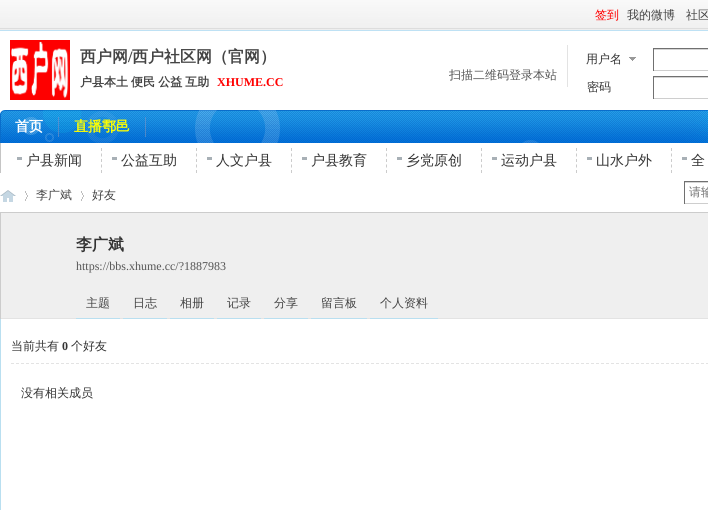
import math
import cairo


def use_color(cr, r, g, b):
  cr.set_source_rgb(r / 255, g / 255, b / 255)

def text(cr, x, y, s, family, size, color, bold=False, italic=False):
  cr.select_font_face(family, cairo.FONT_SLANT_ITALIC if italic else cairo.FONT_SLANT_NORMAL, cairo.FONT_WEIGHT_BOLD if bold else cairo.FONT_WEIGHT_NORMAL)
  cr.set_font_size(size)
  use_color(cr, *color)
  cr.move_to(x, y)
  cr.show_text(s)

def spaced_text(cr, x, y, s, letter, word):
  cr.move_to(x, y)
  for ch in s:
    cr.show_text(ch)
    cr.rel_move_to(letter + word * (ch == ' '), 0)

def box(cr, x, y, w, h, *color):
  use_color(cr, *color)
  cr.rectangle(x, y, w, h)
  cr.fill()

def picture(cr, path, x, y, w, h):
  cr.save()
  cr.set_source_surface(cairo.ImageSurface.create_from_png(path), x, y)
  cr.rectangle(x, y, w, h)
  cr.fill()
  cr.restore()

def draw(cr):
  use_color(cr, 255, 255, 255)
  cr.paint()
  picture(cr, "img_01.png", 0, 30, 708, 1)
  picture(cr, "img_02.png", 0, 0, 708, 30)
  picture(cr, "img_03.png", 10, 40, 60, 60)
  box(cr, 567, 45, 1, 42, 227, 227, 227)
  picture(cr, "img_04.png", 629, 57, 7, 4)
  box(cr, 653, 49, 55, 1, 212, 212, 212)
  box(cr, 653, 48, 55, 1, 112, 112, 112)
  box(cr, 653, 70, 55, 1, 206, 206, 206)
  box(cr, 653, 48, 1, 23, 112, 112, 112)
  box(cr, 653, 77, 55, 1, 212, 212, 212)
  box(cr, 653, 76, 55, 1, 112, 112, 112)
  box(cr, 653, 98, 55, 1, 206, 206, 206)
  box(cr, 653, 76, 1, 23, 112, 112, 112)
  picture(cr, "img_05.png", 0, 110, 708, 33)
  picture(cr, "img_06.png", 58, 117, 1, 20)
  picture(cr, "img_06.png", 145, 117, 1, 20)
  box(cr, 0, 143, 1, 30, 197, 197, 197)
  box(cr, 17, 157, 5, 3, 168, 176, 182)
  cr.new_path()
  cr.move_to(101.5, 148)
  cr.line_to(101.5, 173)
  use_color(cr, 204, 204, 204)
  cr.set_line_width(1)
  cr.set_dash([3, 2.5])
  cr.stroke()
  box(cr, 112, 157, 5, 3, 168, 176, 182)
  cr.new_path()
  cr.move_to(196.5, 148)
  cr.line_to(196.5, 173)
  use_color(cr, 204, 204, 204)
  cr.stroke()
  box(cr, 207, 157, 5, 3, 168, 176, 182)
  cr.new_path()
  cr.move_to(291.5, 148)
  cr.line_to(291.5, 173)
  use_color(cr, 204, 204, 204)
  cr.stroke()
  box(cr, 302, 157, 5, 3, 168, 176, 182)
  cr.new_path()
  cr.move_to(386.5, 148)
  cr.line_to(386.5, 173)
  use_color(cr, 204, 204, 204)
  cr.stroke()
  box(cr, 397, 157, 5, 3, 168, 176, 182)
  cr.new_path()
  cr.move_to(481.5, 148)
  cr.line_to(481.5, 173)
  use_color(cr, 204, 204, 204)
  cr.stroke()
  box(cr, 492, 157, 5, 3, 168, 176, 182)
  cr.new_path()
  cr.move_to(576.5, 148)
  cr.line_to(576.5, 173)
  use_color(cr, 204, 204, 204)
  cr.stroke()
  box(cr, 587, 157, 5, 3, 168, 176, 182)
  cr.new_path()
  cr.move_to(671.5, 148)
  cr.line_to(671.5, 173)
  use_color(cr, 204, 204, 204)
  cr.stroke()
  box(cr, 682, 157, 5, 3, 168, 176, 182)
  picture(cr, "img_07.png", 0, 190, 16, 12)
  picture(cr, "img_08.png", 25, 191, 3, 10)
  picture(cr, "img_08.png", 81, 191, 3, 10)
  box(cr, 684, 182, 24, 1, 212, 212, 212)
  box(cr, 684, 181, 24, 1, 112, 112, 112)
  box(cr, 684, 203, 24, 1, 206, 206, 206)
  box(cr, 684, 181, 1, 23, 112, 112, 112)
  box(cr, 1, 213, 707, 105, 239, 239, 239)
  box(cr, 0, 212, 708, 1, 204, 204, 204)
  box(cr, 0, 212, 1, 107, 204, 204, 204)
  box(cr, 1, 318, 707, 1, 227, 227, 227)
  box(cr, 76, 318, 44, 1, 185, 223, 240)
  box(cr, 123, 318, 44, 1, 185, 223, 240)
  box(cr, 170, 318, 44, 1, 185, 223, 240)
  box(cr, 217, 318, 44, 1, 185, 223, 240)
  box(cr, 264, 318, 44, 1, 185, 223, 240)
  box(cr, 311, 318, 56, 1, 185, 223, 240)
  box(cr, 370, 318, 68, 1, 185, 223, 240)
  box(cr, 0, 319, 1, 191, 185, 223, 240)
  cr.new_path()
  cr.move_to(11, 363.5)
  cr.line_to(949, 363.5)
  use_color(cr, 227, 227, 227)
  cr.set_dash([3, 2])
  cr.stroke()
  text(cr, 595, 19, "签到", "WenQuanYi Zen Hei Medium", 12, (255, 0, 0))
  text(cr, 627, 19, "我的微博", "WenQuanYi Zen Hei Medium", 12, (68, 68, 68))
  text(cr, 686, 19, "社区", "WenQuanYi Zen Hei Medium", 12, (68, 68, 68))
  text(cr, 80, 62, "西户网", "WenQuanYi Zen Hei", 16, (68, 68, 68), bold=True)
  text(cr, 128, 62, "/", "Liberation Serif", 16, (68, 68, 68), bold=True)
  text(cr, 132, 62, "西户社区网（官网）", "WenQuanYi Zen Hei", 16, (68, 68, 68), bold=True)
  cr.set_font_size(12)
  spaced_text(cr, 80, 86, "户县本土 便民 公益 互助", 0, -0.5)
  text(cr, 217, 86, "XHUME.CC", "Liberation Serif", 12, (255, 0, 0), bold=True)
  text(cr, 449, 79, "扫描二维码登录本站", "WenQuanYi Zen Hei Medium", 12, (85, 85, 85))
  text(cr, 586, 63, "用户名", "WenQuanYi Zen Hei Medium", 12, (51, 51, 51))
  text(cr, 587, 91, "密码", "WenQuanYi Zen Hei Medium", 12, (51, 51, 51))
  text(cr, 15, 131, "首页", "WenQuanYi Zen Hei", 14, (255, 255, 255), bold=True)
  text(cr, 74, 131, "直播鄠邑", "WenQuanYi Zen Hei", 14, (255, 255, 0), bold=True)
  text(cr, 26, 165, "户县新闻", "WenQuanYi Zen Hei Medium", 14, (51, 51, 51))
  text(cr, 121, 165, "公益互助", "WenQuanYi Zen Hei Medium", 14, (51, 51, 51))
  text(cr, 216, 165, "人文户县", "WenQuanYi Zen Hei Medium", 14, (51, 51, 51))
  text(cr, 311, 165, "户县教育", "WenQuanYi Zen Hei Medium", 14, (51, 51, 51))
  text(cr, 406, 165, "乡党原创", "WenQuanYi Zen Hei Medium", 14, (51, 51, 51))
  text(cr, 501, 165, "运动户县", "WenQuanYi Zen Hei Medium", 14, (51, 51, 51))
  text(cr, 596, 165, "山水户外", "WenQuanYi Zen Hei Medium", 14, (51, 51, 51))
  text(cr, 691, 165, "全", "WenQuanYi Zen Hei Medium", 14, (51, 51, 51))
  text(cr, 36, 199, "李广斌", "WenQuanYi Zen Hei Medium", 12, (68, 68, 68))
  text(cr, 92, 199, "好友", "WenQuanYi Zen Hei Medium", 12, (68, 68, 68))
  text(cr, 689, 196, "请输", "WenQuanYi Zen Hei Medium", 12, (117, 117, 117))
  text(cr, 76, 250, "李广斌", "WenQuanYi Zen Hei", 16, (51, 51, 51), bold=True)
  text(cr, 76, 270, "https://bbs.xhume.cc/?1887983", "Liberation Serif", 12, (85, 85, 85))
  text(cr, 86, 307, "主题", "WenQuanYi Zen Hei Medium", 12, (68, 68, 68))
  text(cr, 133, 307, "日志", "WenQuanYi Zen Hei Medium", 12, (68, 68, 68))
  text(cr, 180, 307, "相册", "WenQuanYi Zen Hei Medium", 12, (68, 68, 68))
  text(cr, 227, 307, "记录", "WenQuanYi Zen Hei Medium", 12, (68, 68, 68))
  text(cr, 274, 307, "分享", "WenQuanYi Zen Hei Medium", 12, (68, 68, 68))
  text(cr, 321, 307, "留言板", "WenQuanYi Zen Hei Medium", 12, (68, 68, 68))
  text(cr, 380, 307, "个人资料", "WenQuanYi Zen Hei Medium", 12, (68, 68, 68))
  text(cr, 11, 350, "当前共有", "WenQuanYi Zen Hei Medium", 12, (51, 51, 51))
  text(cr, 62, 350, "0", "Liberation Serif", 12, (51, 51, 51), bold=True)
  text(cr, 71, 350, "个好友", "WenQuanYi Zen Hei Medium", 12, (51, 51, 51))
  text(cr, 21, 397, "没有相关成员", "WenQuanYi Zen Hei Medium", 12, (51, 51, 51))


surface = cairo.ImageSurface(cairo.FORMAT_RGB24, 708, 510)
cr = cairo.Context(surface)
options = cairo.FontOptions()
options.set_hint_metrics(cairo.HINT_METRICS_OFF)
options.set_hint_style(cairo.HINT_STYLE_NONE)
cr.set_font_options(options)
cr.set_miter_limit(4)
draw(cr)
surface.write_to_png("out.png")
